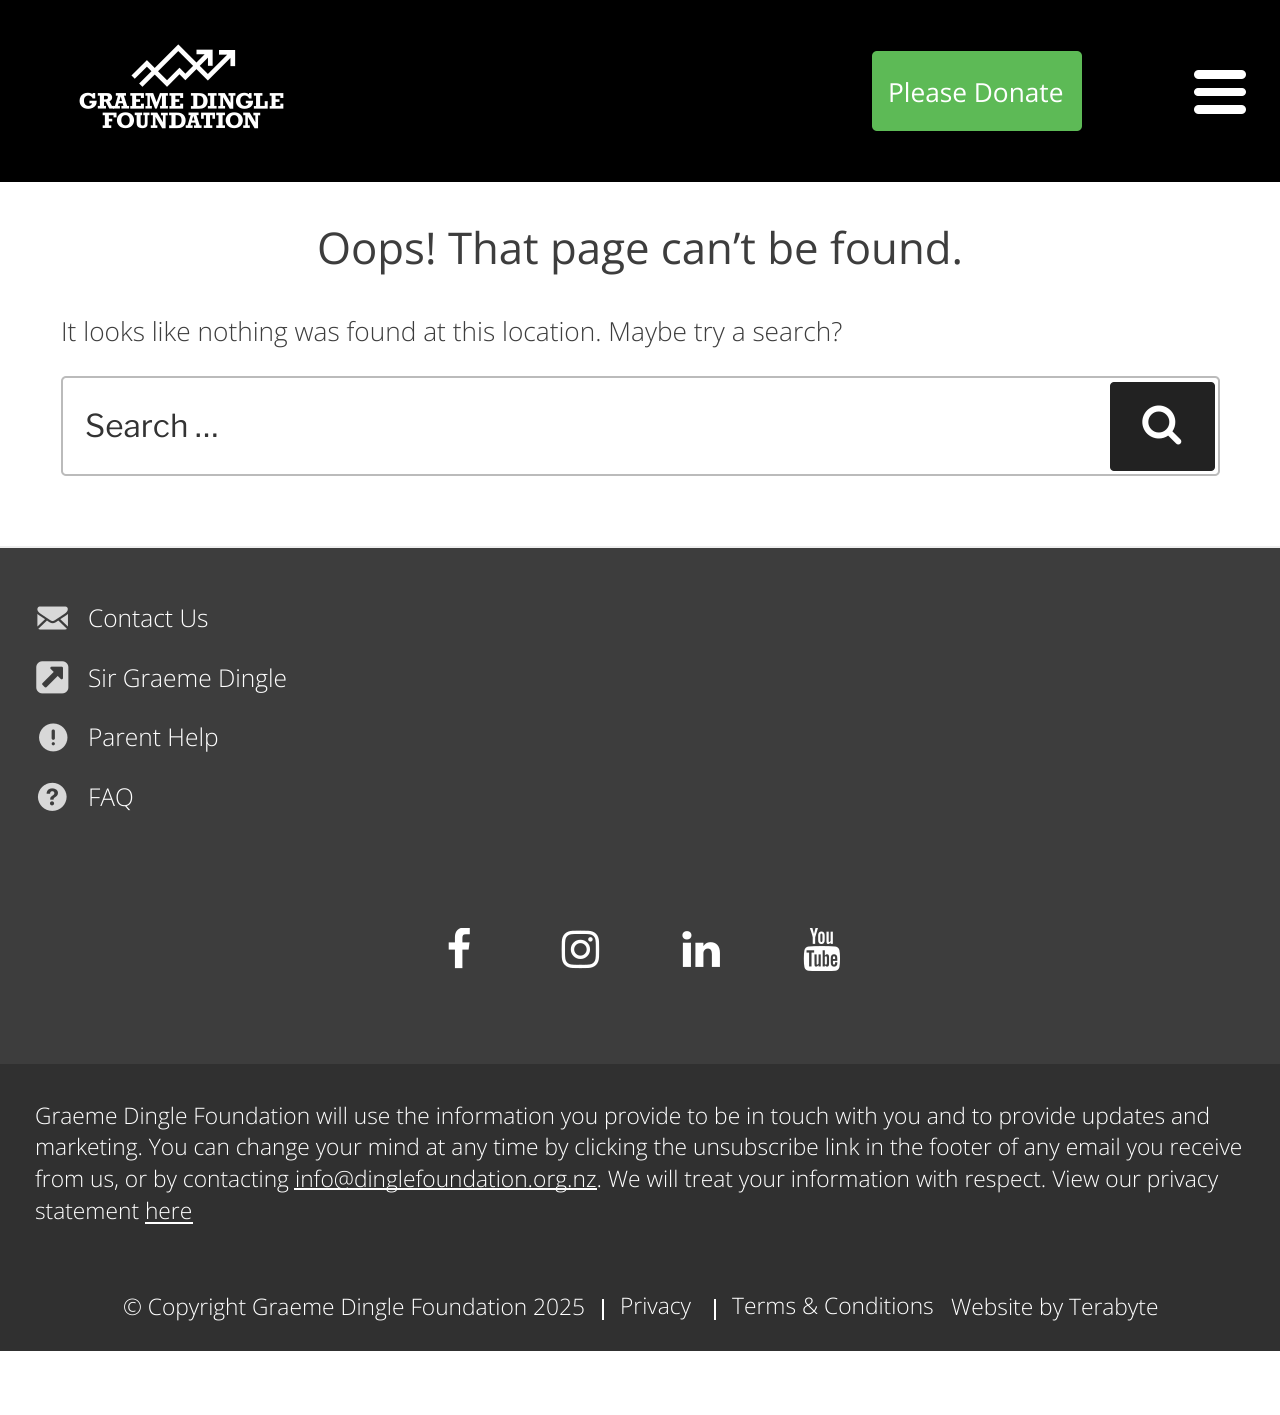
import math
import cairo


def use_color(cr, r, g, b):
  cr.set_source_rgb(r / 255, g / 255, b / 255)

def text(cr, x, y, s, family, size, color, bold=False, italic=False):
  cr.select_font_face(family, cairo.FONT_SLANT_ITALIC if italic else cairo.FONT_SLANT_NORMAL, cairo.FONT_WEIGHT_BOLD if bold else cairo.FONT_WEIGHT_NORMAL)
  cr.set_font_size(size)
  use_color(cr, *color)
  cr.move_to(x, y)
  cr.show_text(s)

def box(cr, x, y, w, h, *color):
  use_color(cr, *color)
  cr.rectangle(x, y, w, h)
  cr.fill()

def round_rect(cr, x, y, w, h, r):
  cr.new_sub_path()
  for i, (u, v) in enumerate([(x + w - r, y + h - r), (x + r, y + h - r), (x + r, y + r), (x + w - r, y + r)]):
    cr.arc(u, v, r, i * math.pi / 2, (i + 1) * math.pi / 2)
  cr.close_path()

def picture(cr, path, x, y, w, h):
  cr.save()
  cr.set_source_surface(cairo.ImageSurface.create_from_png(path), x, y)
  cr.rectangle(x, y, w, h)
  cr.fill()
  cr.restore()

def draw(cr):
  use_color(cr, 255, 255, 255)
  cr.paint()
  box(cr, 0, 0, 1280, 182, 0, 0, 0)
  picture(cr, "img_01.png", 79, 44, 205, 85)
  use_color(cr, 93, 186, 86)
  round_rect(cr, 872, 51, 210, 80, 5)
  cr.fill()
  use_color(cr, 255, 255, 255)
  round_rect(cr, 1194, 88, 52, 8, 4)
  cr.fill()
  round_rect(cr, 1194, 70, 52, 9, 4.5)
  cr.fill()
  round_rect(cr, 1194, 105, 52, 9, 4.5)
  cr.fill()
  round_rect(cr, 62, 377, 1157, 98, 4)
  use_color(cr, 187, 187, 187)
  cr.stroke()
  use_color(cr, 34, 34, 34)
  round_rect(cr, 1110, 382, 105, 89, 4)
  cr.fill()
  picture(cr, "img_02.png", 1142, 405, 40, 40)
  box(cr, 0, 548, 1280, 516, 61, 61, 61)
  box(cr, 0, 546, 1280, 2, 238, 238, 238)
  picture(cr, "img_03.png", 37, 606, 31, 24)
  picture(cr, "img_04.png", 36, 661, 33, 33)
  picture(cr, "img_05.png", 39, 723, 29, 29)
  picture(cr, "img_06.png", 37, 782, 30, 29)
  picture(cr, "img_07.png", 448, 928, 22, 41)
  picture(cr, "img_08.png", 561, 930, 39, 39)
  picture(cr, "img_09.png", 682, 931, 38, 36)
  picture(cr, "img_10.png", 803, 928, 37, 43)
  box(cr, 0, 1064, 1280, 287, 48, 48, 48)
  box(cr, 294, 1188, 303, 2, 255, 255, 255)
  box(cr, 145, 1222, 48, 2, 255, 255, 255)
  box(cr, 602, 1299, 2, 21, 255, 255, 255)
  box(cr, 714, 1299, 2, 21, 255, 255, 255)
  text(cr, 888, 102, "Please Donate", "Open Sans", 26.25, (255, 255, 255))
  text(cr, 317, 264, "Oops! That page can’t be found.", "Open Sans", 43.75, (61, 61, 61))
  text(cr, 61, 341, "It looks like nothing was found at this location. Maybe try a search?", "Open Sans Light", 26.25, (61, 61, 61))
  text(cr, 85, 437, "Search …", "Libre Franklin Thin", 31.5, (51, 51, 51))
  text(cr, 88, 627, "Contact Us", "Open Sans Light", 24.5, (255, 255, 255))
  text(cr, 88, 687, "Sir Graeme Dingle", "Open Sans Light", 24.5, (255, 255, 255))
  text(cr, 88, 746, "Parent Help", "Open Sans Light", 24.5, (255, 255, 255))
  text(cr, 88, 806, "FAQ", "Open Sans Light", 24.5, (255, 255, 255))
  text(cr, 35, 1124, "Graeme Dingle Foundation will use the information you provide to be in touch with you and to provide updates and", "Open Sans Light", 22.75, (255, 255, 255))
  text(cr, 35, 1155, "marketing. You can change your mind at any time by clicking the unsubscribe link in the footer of any email you receive", "Open Sans Light", 22.75, (255, 255, 255))
  text(cr, 35, 1187, "from us, or by contacting", "Open Sans Light", 22.75, (255, 255, 255))
  text(cr, 295, 1187, "info@dinglefoundation.org.nz. We will treat your information with respect. View our privacy", "Open Sans Light", 22.75, (255, 255, 255))
  text(cr, 35, 1219, "statement here", "Open Sans Light", 22.75, (255, 255, 255))
  text(cr, 123, 1315, "© Copyright Graeme Dingle Foundation 2025", "Open Sans Light", 22.75, (255, 255, 255))
  text(cr, 620, 1314, "Privacy", "Open Sans Light", 22.75, (255, 255, 255))
  text(cr, 732, 1314, "Terms & Conditions", "Open Sans Light", 22.75, (255, 255, 255))
  text(cr, 951, 1315, "Website by Terabyte", "Open Sans Light", 22.75, (255, 255, 255))


surface = cairo.ImageSurface(cairo.FORMAT_RGB24, 1280, 1415)
cr = cairo.Context(surface)
options = cairo.FontOptions()
options.set_hint_metrics(cairo.HINT_METRICS_OFF)
options.set_hint_style(cairo.HINT_STYLE_NONE)
cr.set_font_options(options)
cr.set_miter_limit(4)
draw(cr)
surface.write_to_png("out.png")
